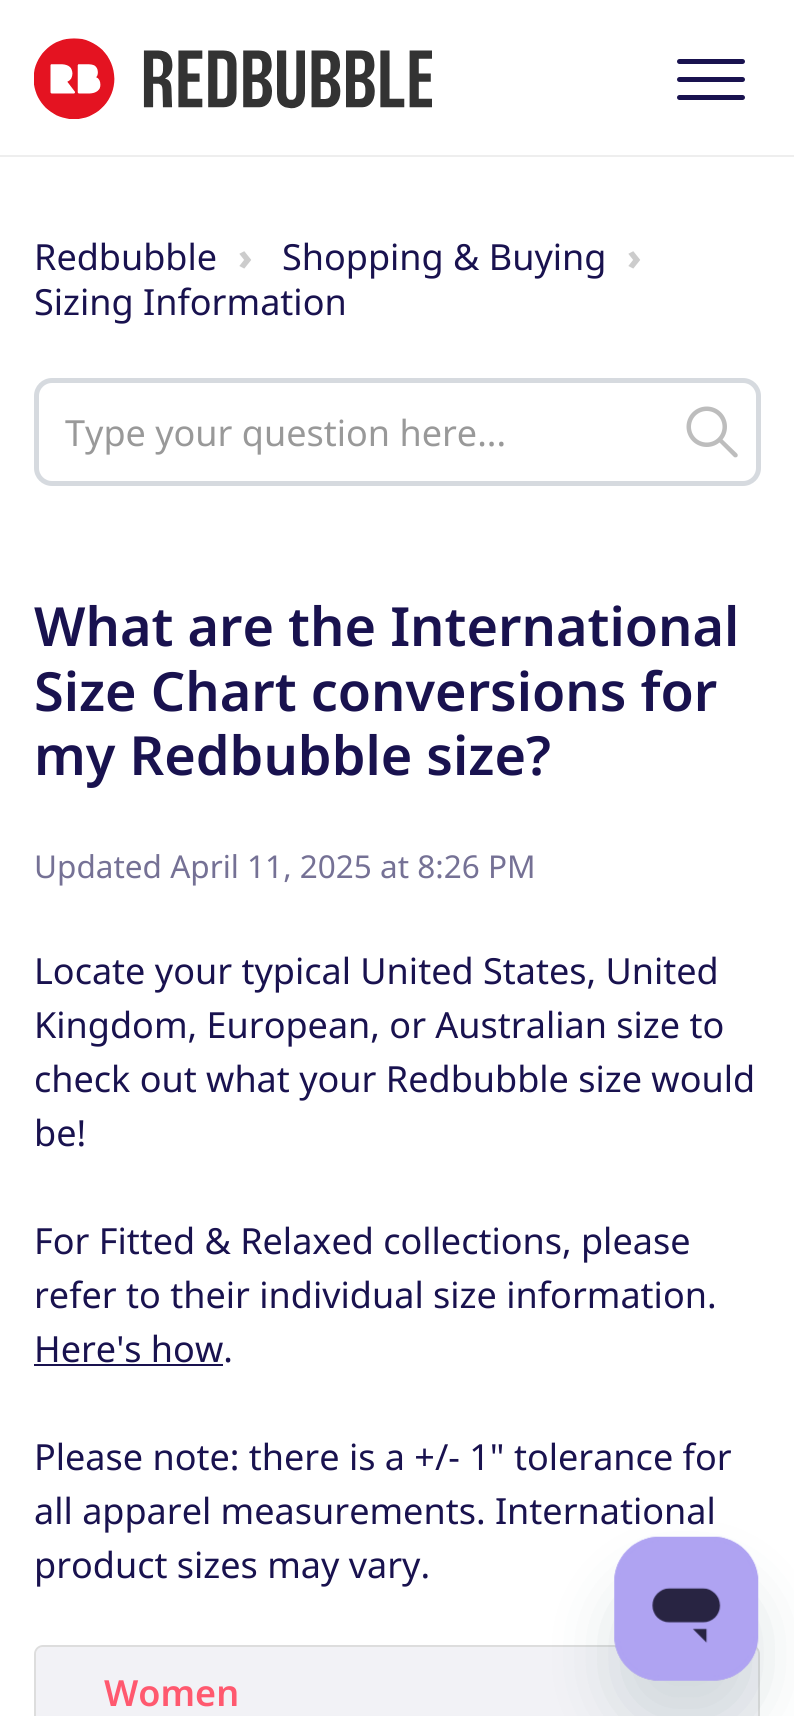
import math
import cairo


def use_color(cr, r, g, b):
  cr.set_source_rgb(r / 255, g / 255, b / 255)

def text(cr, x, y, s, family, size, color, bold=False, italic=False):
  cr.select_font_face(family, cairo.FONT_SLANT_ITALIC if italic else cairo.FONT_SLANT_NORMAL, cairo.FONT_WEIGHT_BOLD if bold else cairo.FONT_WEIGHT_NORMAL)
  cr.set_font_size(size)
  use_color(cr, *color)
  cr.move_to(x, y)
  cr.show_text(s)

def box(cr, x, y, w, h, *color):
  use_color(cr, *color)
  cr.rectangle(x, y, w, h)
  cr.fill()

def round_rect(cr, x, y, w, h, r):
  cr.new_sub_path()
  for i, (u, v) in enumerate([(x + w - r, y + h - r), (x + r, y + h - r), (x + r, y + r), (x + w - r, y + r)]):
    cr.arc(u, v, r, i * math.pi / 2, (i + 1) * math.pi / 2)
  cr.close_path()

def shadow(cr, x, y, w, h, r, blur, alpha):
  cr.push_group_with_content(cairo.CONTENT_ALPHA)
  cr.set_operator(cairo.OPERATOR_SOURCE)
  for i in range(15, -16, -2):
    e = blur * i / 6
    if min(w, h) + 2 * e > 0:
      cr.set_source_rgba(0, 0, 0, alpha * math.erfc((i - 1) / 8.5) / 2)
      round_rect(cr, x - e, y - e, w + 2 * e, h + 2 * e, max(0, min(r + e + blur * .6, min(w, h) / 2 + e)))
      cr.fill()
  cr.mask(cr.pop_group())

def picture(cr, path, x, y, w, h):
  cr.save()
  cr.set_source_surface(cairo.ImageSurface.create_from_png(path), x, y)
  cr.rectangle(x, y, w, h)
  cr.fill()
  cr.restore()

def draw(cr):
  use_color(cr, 255, 255, 255)
  cr.paint()
  box(cr, 0, 155, 794, 2, 238, 238, 238)
  picture(cr, "img_01.png", 34, 38, 398, 81)
  use_color(cr, 25, 18, 79)
  round_rect(cr, 677, 77, 68, 5, 2.5)
  cr.fill()
  round_rect(cr, 677, 59, 68, 5, 2.5)
  cr.fill()
  round_rect(cr, 677, 95, 68, 5, 2.5)
  cr.fill()
  round_rect(cr, 36.5, 380.5, 722, 103, 15.5)
  use_color(cr, 214, 218, 223)
  cr.set_line_width(5)
  cr.stroke()
  cr.new_path()
  cr.move_to(694, 414)
  cr.curve_to(687, 421, 687, 432.5, 694, 439.5)
  cr.curve_to(701, 446.5, 712.5, 446.5, 719.5, 439.5)
  cr.curve_to(726.5, 432.5, 726.5, 421, 719.5, 414)
  cr.curve_to(712.5, 407, 701, 407, 694, 414)
  cr.close_path()
  use_color(cr, 189, 189, 189)
  cr.set_line_width(4.5)
  cr.stroke()
  cr.new_path()
  cr.move_to(721, 438)
  cr.line_to(718, 441)
  cr.line_to(734, 457)
  cr.curve_to(734.5, 457.5, 736, 457.5, 737, 457)
  cr.curve_to(738, 456, 738, 454.5, 737, 453.5)
  cr.close_path()
  cr.fill()
  box(cr, 34, 1364, 189, 2, 25, 18, 79)
  use_color(cr, 242, 242, 246)
  cr.new_path()
  cr.move_to(43, 1647)
  cr.line_to(751, 1647)
  cr.curve_to(755, 1647, 758, 1650, 758, 1654)
  cr.line_to(758, 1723)
  cr.line_to(36, 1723)
  cr.line_to(36, 1654)
  cr.curve_to(36, 1650, 39, 1647, 43, 1647)
  cr.close_path()
  cr.fill()
  use_color(cr, 221, 221, 221)
  cr.set_fill_rule(cairo.FILL_RULE_EVEN_ODD)
  cr.new_path()
  cr.move_to(43, 1645)
  cr.line_to(752, 1645)
  cr.curve_to(756, 1645, 760, 1649, 760, 1654)
  cr.line_to(760, 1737)
  cr.line_to(34, 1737)
  cr.line_to(34, 1654)
  cr.curve_to(34, 1649, 38, 1645, 43, 1645)
  cr.close_path()
  cr.move_to(43, 1647)
  cr.line_to(752, 1647)
  cr.curve_to(755, 1647, 758, 1650, 758, 1654)
  cr.line_to(758, 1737)
  cr.line_to(36, 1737)
  cr.line_to(36, 1654)
  cr.curve_to(36, 1650, 39, 1647, 43, 1647)
  cr.close_path()
  cr.fill()
  use_color(cr, 23, 73, 77)
  shadow(cr, 614, 1582, 144, 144, 45, 34, 0.15)
  picture(cr, "img_02.png", 614, 1536, 145, 145)
  text(cr, 34, 270, "Redbubble", "Noto Sans", 36, (25, 18, 79))
  text(cr, 238, 270, "›", "Noto Sans Black", 36, (204, 204, 204))
  text(cr, 282, 270, "Shopping & Buying", "Noto Sans", 36, (25, 18, 79))
  text(cr, 627, 270, "›", "Noto Sans Black", 36, (204, 204, 204))
  text(cr, 34, 315, "Sizing Information", "Noto Sans", 36, (25, 18, 79))
  text(cr, 65, 446, "Type your question here...", "Noto Sans", 36, (153, 153, 153))
  text(cr, 34, 646, "What are the International", "Noto Sans SemiBold", 54, (25, 18, 79))
  text(cr, 34, 711, "Size Chart conversions for", "Noto Sans SemiBold", 54, (25, 18, 79))
  text(cr, 34, 775, "my Redbubble size?", "Noto Sans SemiBold", 54, (25, 18, 79))
  text(cr, 34, 878, "Updated April 11, 2025 at 8:26 PM", "Noto Sans", 31.5, (117, 113, 149))
  text(cr, 34, 984, "Locate your typical United States, United", "Noto Sans", 36, (25, 18, 79))
  text(cr, 34, 1038, "Kingdom, European, or Australian size to", "Noto Sans", 36, (25, 18, 79))
  text(cr, 34, 1092, "check out what your Redbubble size would", "Noto Sans", 36, (25, 18, 79))
  text(cr, 34, 1146, "be!", "Noto Sans", 36, (25, 18, 79))
  text(cr, 34, 1254, "For Fitted & Relaxed collections, please", "Noto Sans", 36, (25, 18, 79))
  text(cr, 34, 1308, "refer to their individual size information.", "Noto Sans", 36, (25, 18, 79))
  text(cr, 34, 1362, "Here's how.", "Noto Sans", 36, (25, 18, 79))
  text(cr, 34, 1470, "Please note: there is a +/- 1\" tolerance for", "Noto Sans", 36, (25, 18, 79))
  text(cr, 34, 1524, "all apparel measurements. International", "Noto Sans", 36, (25, 18, 79))
  text(cr, 34, 1578, "product sizes may vary.", "Noto Sans", 36, (25, 18, 79))
  text(cr, 104, 1706, "Women", "Noto Sans SemiBold", 36, (255, 89, 111))


surface = cairo.ImageSurface(cairo.FORMAT_RGB24, 794, 1716)
cr = cairo.Context(surface)
options = cairo.FontOptions()
options.set_hint_metrics(cairo.HINT_METRICS_OFF)
options.set_hint_style(cairo.HINT_STYLE_NONE)
cr.set_font_options(options)
cr.set_miter_limit(4)
draw(cr)
surface.write_to_png("out.png")
